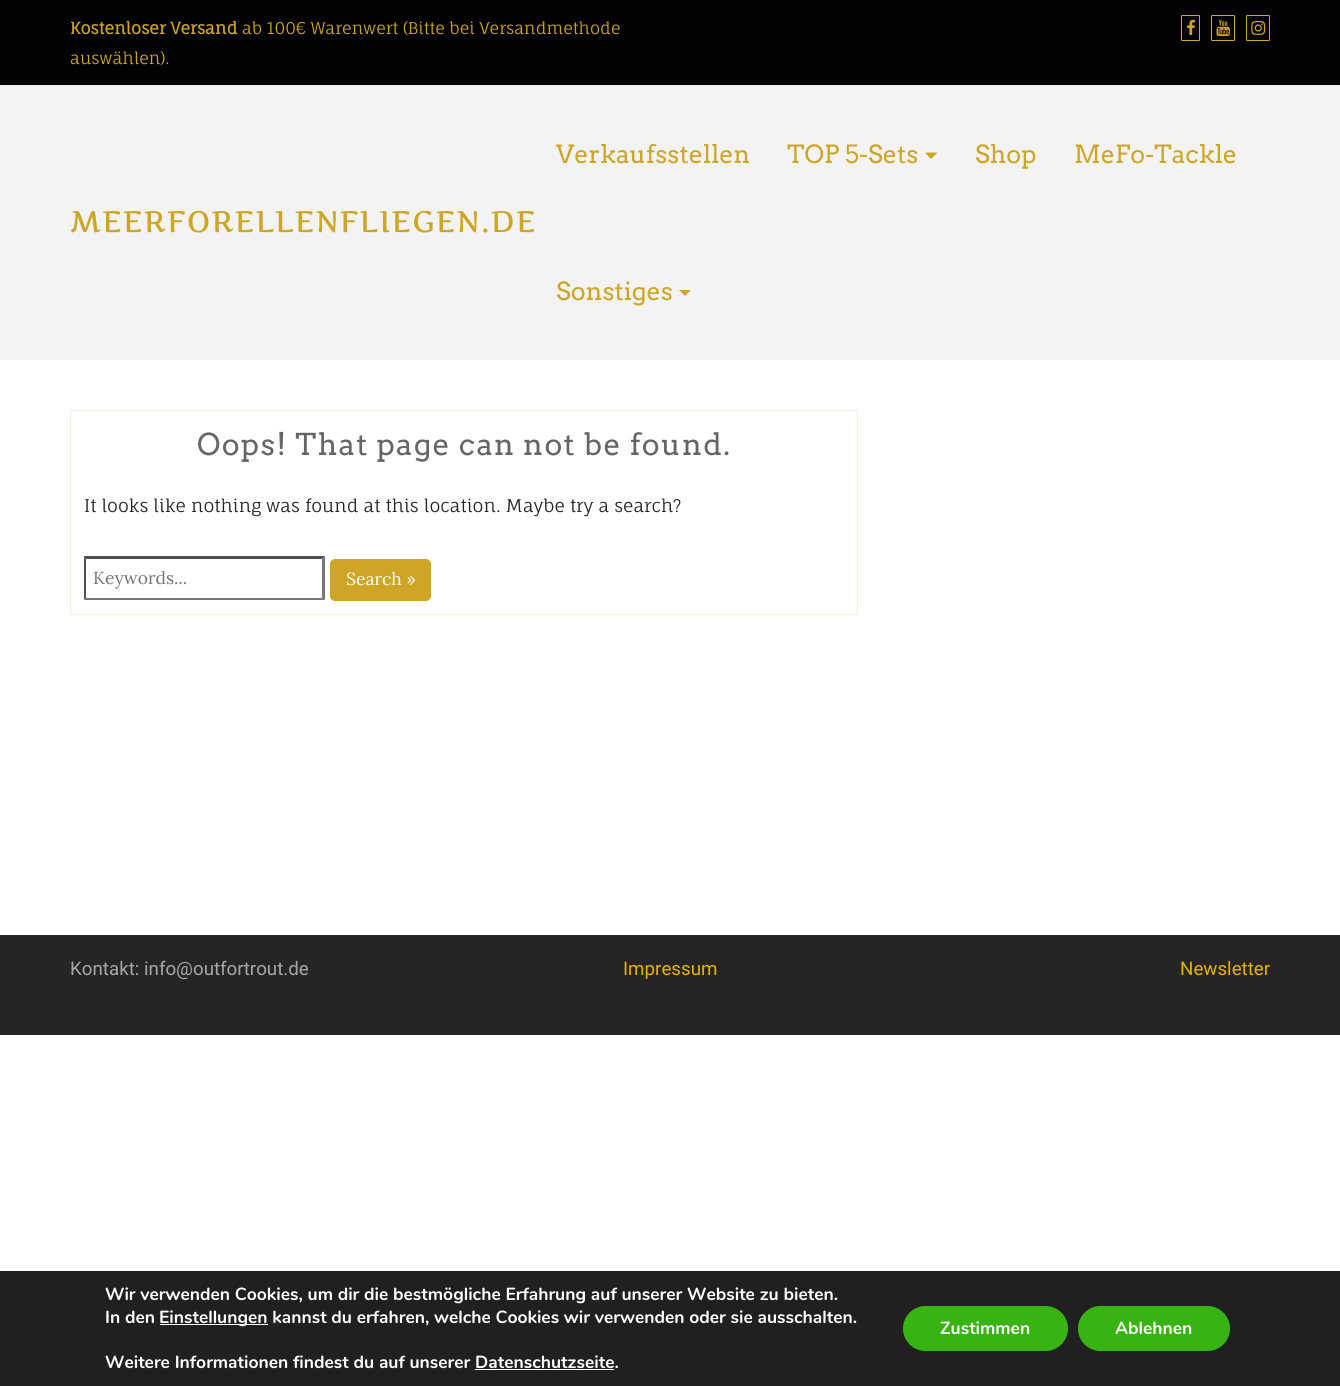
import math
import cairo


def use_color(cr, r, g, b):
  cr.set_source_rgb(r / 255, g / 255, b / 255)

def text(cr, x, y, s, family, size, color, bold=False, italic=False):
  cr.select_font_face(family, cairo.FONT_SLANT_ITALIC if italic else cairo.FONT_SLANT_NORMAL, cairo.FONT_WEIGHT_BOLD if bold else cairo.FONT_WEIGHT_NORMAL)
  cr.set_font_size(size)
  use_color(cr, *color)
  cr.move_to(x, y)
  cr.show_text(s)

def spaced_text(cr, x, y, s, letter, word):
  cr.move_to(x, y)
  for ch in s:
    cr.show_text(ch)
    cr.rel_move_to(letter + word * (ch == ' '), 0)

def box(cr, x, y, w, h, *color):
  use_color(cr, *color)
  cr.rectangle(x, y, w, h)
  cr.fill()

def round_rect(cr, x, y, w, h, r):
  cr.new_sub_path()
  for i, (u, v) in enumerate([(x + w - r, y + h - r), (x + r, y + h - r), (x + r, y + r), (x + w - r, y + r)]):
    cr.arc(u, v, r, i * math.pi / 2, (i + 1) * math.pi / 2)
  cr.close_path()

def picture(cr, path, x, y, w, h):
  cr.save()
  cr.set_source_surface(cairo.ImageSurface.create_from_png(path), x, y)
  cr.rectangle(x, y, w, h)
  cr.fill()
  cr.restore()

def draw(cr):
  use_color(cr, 255, 255, 255)
  cr.paint()
  box(cr, 0, 0, 1340, 85, 2, 2, 2)
  round_rect(cr, 1181.5, 15.5, 18, 25, 0.5)
  use_color(cr, 206, 165, 37)
  cr.set_line_width(1)
  cr.stroke()
  picture(cr, "img_01.png", 1187, 19, 8, 16)
  round_rect(cr, 1211.5, 15.5, 23, 25, 0.5)
  cr.stroke()
  picture(cr, "img_02.png", 1216, 19, 14, 18)
  round_rect(cr, 1246.5, 15.5, 23, 25, 0.5)
  cr.stroke()
  picture(cr, "img_03.png", 1251, 21, 15, 14)
  box(cr, 0, 85, 1340, 275, 243, 243, 243)
  use_color(cr, 206, 165, 37)
  cr.new_path()
  cr.move_to(925, 152.5)
  cr.line_to(937.5, 152.5)
  cr.line_to(931, 159)
  cr.close_path()
  cr.fill()
  cr.new_path()
  cr.move_to(679, 290)
  cr.line_to(691, 290)
  cr.line_to(685, 296)
  cr.close_path()
  cr.fill()
  cr.rectangle(70.5, 410.5, 787, 204)
  use_color(cr, 237, 245, 226)
  cr.stroke()
  use_color(cr, 79, 79, 79)
  cr.new_path()
  cr.move_to(84, 556)
  cr.line_to(325, 556)
  cr.line_to(322, 559)
  cr.line_to(86, 559)
  cr.close_path()
  cr.fill()
  use_color(cr, 118, 118, 118)
  cr.new_path()
  cr.move_to(325, 556)
  cr.line_to(325, 600)
  cr.line_to(322, 598)
  cr.line_to(322, 559)
  cr.close_path()
  cr.fill()
  cr.new_path()
  cr.move_to(325, 600)
  cr.line_to(84, 600)
  cr.line_to(86, 598)
  cr.line_to(322, 598)
  cr.close_path()
  cr.fill()
  use_color(cr, 79, 79, 79)
  cr.new_path()
  cr.move_to(84, 600)
  cr.line_to(84, 556)
  cr.line_to(86, 559)
  cr.line_to(86, 598)
  cr.close_path()
  cr.fill()
  use_color(cr, 206, 165, 37)
  round_rect(cr, 330, 559, 101, 42, 5)
  cr.fill()
  box(cr, 0, 935, 1340, 100, 39, 36, 36)
  box(cr, 0, 1271, 1340, 115, 32, 32, 32)
  box(cr, 160, 1324, 108, 1, 255, 255, 255)
  box(cr, 475, 1369, 139, 1, 255, 255, 255)
  use_color(cr, 56, 180, 18)
  round_rect(cr, 903, 1306, 165, 45, 22.5)
  cr.fill()
  round_rect(cr, 1078, 1306, 152, 45, 22.5)
  cr.fill()
  text(cr, 70, 34, "Kostenloser Versand", "Fauna One", 16.25, (206, 165, 37), bold=True)
  text(cr, 242, 34, "ab 100€ Warenwert (Bitte bei Versandmethode", "Fauna One", 16.25, (206, 165, 37))
  text(cr, 70, 64, "auswählen).", "Fauna One", 16.25, (206, 165, 37))
  cr.select_font_face("Artifika")
  cr.set_font_size(30)
  spaced_text(cr, 70, 232, "MEERFORELLENFLIEGEN.DE", 1.25, 0)
  text(cr, 556, 163, "Verkaufsstellen", "Arvo", 25, (206, 165, 37))
  text(cr, 787, 163, "TOP 5-Sets", "Arvo", 25, (206, 165, 37))
  text(cr, 975, 163, "Shop", "Arvo", 25, (206, 165, 37))
  text(cr, 1074, 163, "MeFo-Tackle", "Arvo", 25, (206, 165, 37))
  text(cr, 556, 300, "Sonstiges", "Arvo", 25, (206, 165, 37))
  cr.set_font_size(30)
  use_color(cr, 101, 101, 101)
  spaced_text(cr, 197, 455, "Oops! That page can not be found.", 1.25, 0)
  text(cr, 84, 512, "It looks like nothing was found at this location. Maybe try a search?", "Fauna One", 17.5, (33, 37, 41))
  text(cr, 93, 584, "Keywords...", "Lora", 17.5, (117, 117, 117))
  text(cr, 346, 585, "Search »", "Lora", 17.5, (255, 255, 255))
  text(cr, 70, 975, "Kontakt: info@outfortrout.de", "Roboto", 18.75, (167, 167, 167))
  text(cr, 623, 975, "Impressum", "Roboto", 18.75, (230, 178, 0))
  text(cr, 1180, 975, "Newsletter", "Roboto", 18.75, (230, 178, 0))
  text(cr, 105, 1300, "Wir verwenden Cookies, um dir die bestmögliche Erfahrung auf unserer Website zu bieten.", "Nunito", 17.5, (255, 255, 255), bold=True)
  text(cr, 105, 1323, "In den", "Nunito", 17.5, (255, 255, 255), bold=True)
  text(cr, 159, 1323, "Einstellungen kannst du erfahren, welche Cookies wir verwenden oder sie ausschalten.", "Nunito", 17.5, (255, 255, 255), bold=True)
  text(cr, 105, 1368, "Weitere Informationen findest du auf unserer Datenschutzseite.", "Nunito", 17.5, (255, 255, 255), bold=True)
  text(cr, 940, 1334, "Zustimmen", "Nunito", 17.5, (255, 255, 255), bold=True)
  text(cr, 1115, 1334, "Ablehnen", "Nunito", 17.5, (255, 255, 255), bold=True)


surface = cairo.ImageSurface(cairo.FORMAT_RGB24, 1340, 1386)
cr = cairo.Context(surface)
options = cairo.FontOptions()
options.set_hint_metrics(cairo.HINT_METRICS_OFF)
options.set_hint_style(cairo.HINT_STYLE_NONE)
cr.set_font_options(options)
cr.set_miter_limit(4)
draw(cr)
surface.write_to_png("out.png")
